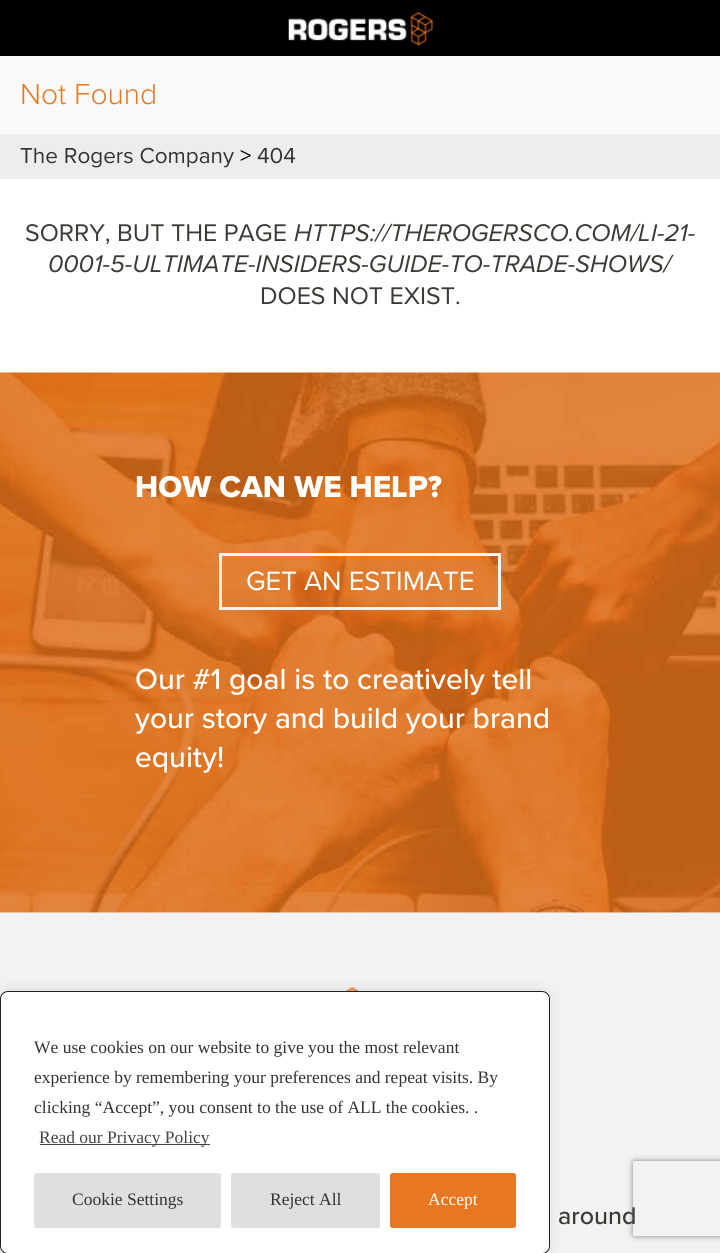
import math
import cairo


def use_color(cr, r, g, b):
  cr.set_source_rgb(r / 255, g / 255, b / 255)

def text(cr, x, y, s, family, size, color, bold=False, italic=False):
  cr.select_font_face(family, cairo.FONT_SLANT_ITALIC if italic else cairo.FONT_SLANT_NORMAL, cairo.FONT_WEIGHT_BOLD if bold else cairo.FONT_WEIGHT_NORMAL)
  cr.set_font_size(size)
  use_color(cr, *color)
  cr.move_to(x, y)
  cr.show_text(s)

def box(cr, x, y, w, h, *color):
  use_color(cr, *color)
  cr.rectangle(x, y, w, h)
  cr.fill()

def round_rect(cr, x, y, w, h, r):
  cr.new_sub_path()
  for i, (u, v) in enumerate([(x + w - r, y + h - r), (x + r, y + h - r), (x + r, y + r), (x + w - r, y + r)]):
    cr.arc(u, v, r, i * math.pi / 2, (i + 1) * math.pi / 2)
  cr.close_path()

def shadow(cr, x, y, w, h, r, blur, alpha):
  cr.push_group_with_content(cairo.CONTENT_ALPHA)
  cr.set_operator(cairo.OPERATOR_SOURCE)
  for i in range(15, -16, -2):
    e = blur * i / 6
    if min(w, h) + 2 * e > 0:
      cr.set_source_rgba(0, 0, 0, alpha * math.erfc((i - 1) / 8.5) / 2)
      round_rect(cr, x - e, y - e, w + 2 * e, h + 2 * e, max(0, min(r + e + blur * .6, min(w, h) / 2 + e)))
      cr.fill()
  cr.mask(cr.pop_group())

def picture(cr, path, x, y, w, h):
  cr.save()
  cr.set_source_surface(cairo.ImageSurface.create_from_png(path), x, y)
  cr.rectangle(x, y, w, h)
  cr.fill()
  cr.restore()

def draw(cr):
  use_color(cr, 255, 255, 255)
  cr.paint()
  box(cr, 0, 0, 720, 56, 0, 0, 0)
  picture(cr, "img_01.png", 288, 12, 145, 34)
  box(cr, 0, 56, 720, 78, 249, 249, 249)
  box(cr, 0, 134, 720, 45, 237, 237, 237)
  picture(cr, "img_02.png", 0, 372, 720, 541)
  cr.rectangle(220.5, 554.5, 279, 54)
  use_color(cr, 243, 243, 243)
  cr.set_line_width(3)
  cr.stroke()
  box(cr, 0, 913, 720, 340, 242, 242, 242)
  picture(cr, "img_03.png", 345, 987, 15, 4)
  use_color(cr, 172, 171, 171)
  shadow(cr, 0, 990, 550, 263, 8, 6, 0.3)
  use_color(cr, 255, 255, 255)
  round_rect(cr, 0.5, 991.5, 549, 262, 7.5)
  cr.fill_preserve()
  use_color(cr, 34, 34, 34)
  cr.set_line_width(1)
  cr.stroke()
  box(cr, 40, 1144, 170, 1, 68, 68, 68)
  use_color(cr, 222, 223, 224)
  round_rect(cr, 35.5, 1174.5, 184, 52, 1)
  cr.fill_preserve()
  cr.set_line_width(3)
  cr.stroke()
  round_rect(cr, 232.5, 1174.5, 146, 52, 1)
  cr.fill_preserve()
  cr.stroke()
  use_color(cr, 232, 119, 34)
  round_rect(cr, 391.5, 1174.5, 123, 52, 1)
  cr.fill_preserve()
  cr.stroke()
  cr.save()
  cr.set_fill_rule(cairo.FILL_RULE_EVEN_ODD)
  cr.new_path()
  cr.move_to(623, 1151)
  cr.line_to(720, 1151)
  cr.line_to(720, 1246)
  cr.line_to(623, 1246)
  cr.close_path()
  cr.move_to(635.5, 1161)
  cr.line_to(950.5, 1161)
  cr.curve_to(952, 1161, 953, 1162, 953, 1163.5)
  cr.line_to(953, 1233.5)
  cr.curve_to(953, 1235, 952, 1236, 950.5, 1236)
  cr.line_to(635.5, 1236)
  cr.curve_to(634, 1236, 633, 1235, 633, 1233.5)
  cr.line_to(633, 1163.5)
  cr.curve_to(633, 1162, 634, 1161, 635.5, 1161)
  cr.close_path()
  cr.clip()
  use_color(cr, 128, 128, 128)
  shadow(cr, 633, 1161, 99, 75, 2.5, 3, 1)
  cr.restore()
  text(cr, 20, 104, "Not Found", "Proxima Nova Light", 30, (231, 119, 33))
  text(cr, 20, 163, "The Rogers Company", "Proxima Nova", 22.5, (51, 51, 51))
  text(cr, 240, 163, ">", "Proxima Nova", 22.5, (0, 0, 0))
  text(cr, 257, 163, "404", "Proxima Nova", 22.5, (51, 51, 51))
  text(cr, 25, 241, "SORRY, BUT THE PAGE", "Proxima Nova", 25, (61, 57, 53))
  text(cr, 294, 241, "HTTPS://THEROGERSCO.COM/LI-21-", "Proxima Nova", 25, (61, 57, 53), italic=True)
  text(cr, 48, 272, "0001-5-ULTIMATE-INSIDERS-GUIDE-TO-TRADE-SHOWS/", "Proxima Nova", 25, (61, 57, 53), italic=True)
  text(cr, 260, 304, "DOES NOT EXIST.", "Proxima Nova", 25, (61, 57, 53))
  text(cr, 135, 497, "HOW CAN WE HELP?", "Proxima Nova ExtraBold", 31.25, (255, 255, 255))
  text(cr, 246, 590, "GET AN ESTIMATE", "Proxima Nova", 27.5, (255, 255, 255))
  text(cr, 135, 689, "Our #1 goal is to creatively tell", "Proxima Nova Medium", 30, (255, 255, 255))
  text(cr, 135, 728, "your story and build your brand", "Proxima Nova Medium", 30, (255, 255, 255))
  text(cr, 135, 767, "equity!", "Proxima Nova Medium", 30, (255, 255, 255))
  text(cr, 558, 1224, "around", "Proxima Nova Medium", 25, (61, 57, 53))
  text(cr, 34, 1053, "We use cookies on our website to give you the most relevant", "Liberation Serif", 17.5, (51, 51, 51))
  text(cr, 34, 1083, "experience by remembering your preferences and repeat visits. By", "Liberation Serif", 17.5, (51, 51, 51))
  text(cr, 34, 1113, "clicking “Accept”, you consent to the use of ALL the cookies. .", "Liberation Serif", 17.5, (51, 51, 51))
  text(cr, 39, 1143, "Read our Privacy Policy", "Liberation Serif", 17.5, (68, 68, 68))
  text(cr, 72, 1205, "Cookie Settings", "Liberation Serif", 17.5, (51, 51, 51))
  text(cr, 270, 1205, "Reject All", "Liberation Serif", 17.5, (51, 51, 51))
  text(cr, 428, 1205, "Accept", "Liberation Serif", 17.5, (255, 255, 255))


surface = cairo.ImageSurface(cairo.FORMAT_RGB24, 720, 1253)
cr = cairo.Context(surface)
options = cairo.FontOptions()
options.set_hint_metrics(cairo.HINT_METRICS_OFF)
options.set_hint_style(cairo.HINT_STYLE_NONE)
cr.set_font_options(options)
cr.set_miter_limit(4)
draw(cr)
surface.write_to_png("out.png")
